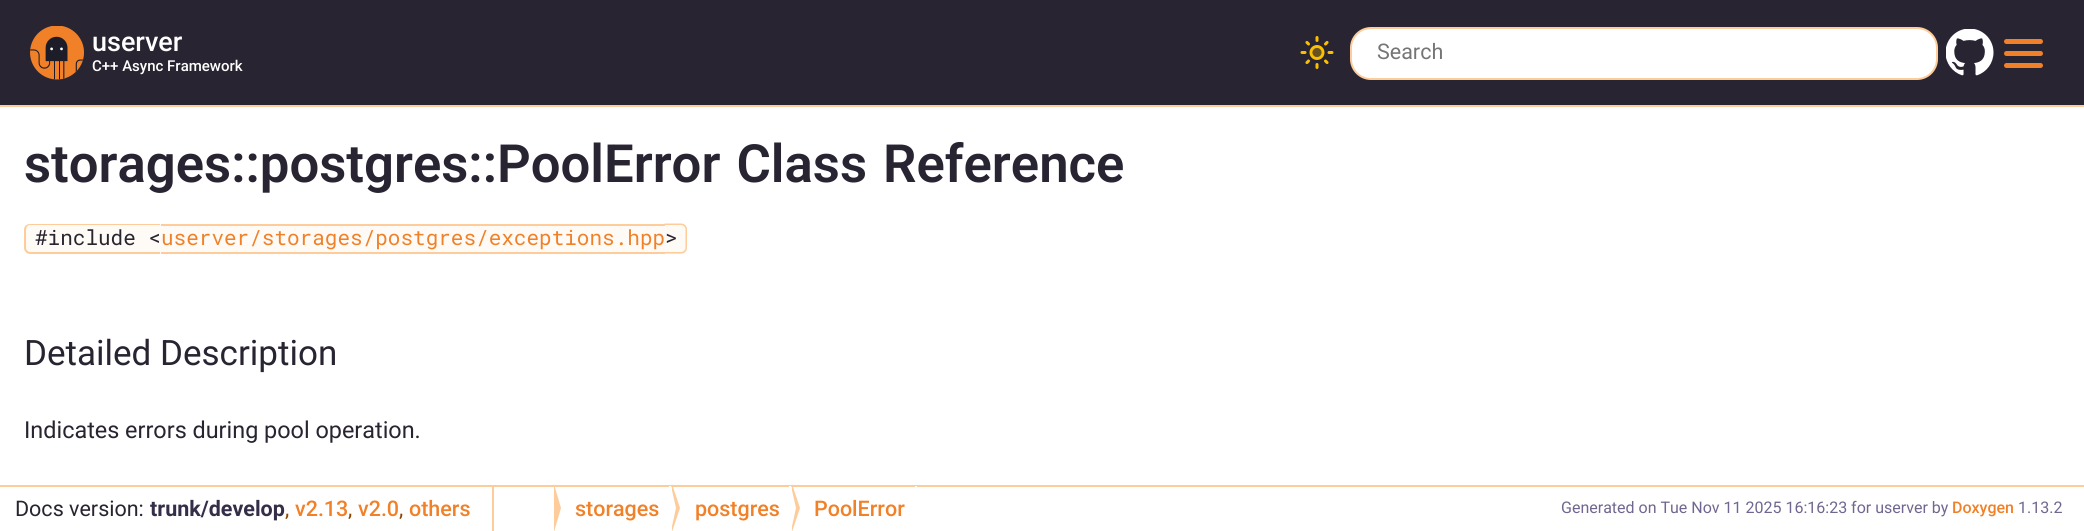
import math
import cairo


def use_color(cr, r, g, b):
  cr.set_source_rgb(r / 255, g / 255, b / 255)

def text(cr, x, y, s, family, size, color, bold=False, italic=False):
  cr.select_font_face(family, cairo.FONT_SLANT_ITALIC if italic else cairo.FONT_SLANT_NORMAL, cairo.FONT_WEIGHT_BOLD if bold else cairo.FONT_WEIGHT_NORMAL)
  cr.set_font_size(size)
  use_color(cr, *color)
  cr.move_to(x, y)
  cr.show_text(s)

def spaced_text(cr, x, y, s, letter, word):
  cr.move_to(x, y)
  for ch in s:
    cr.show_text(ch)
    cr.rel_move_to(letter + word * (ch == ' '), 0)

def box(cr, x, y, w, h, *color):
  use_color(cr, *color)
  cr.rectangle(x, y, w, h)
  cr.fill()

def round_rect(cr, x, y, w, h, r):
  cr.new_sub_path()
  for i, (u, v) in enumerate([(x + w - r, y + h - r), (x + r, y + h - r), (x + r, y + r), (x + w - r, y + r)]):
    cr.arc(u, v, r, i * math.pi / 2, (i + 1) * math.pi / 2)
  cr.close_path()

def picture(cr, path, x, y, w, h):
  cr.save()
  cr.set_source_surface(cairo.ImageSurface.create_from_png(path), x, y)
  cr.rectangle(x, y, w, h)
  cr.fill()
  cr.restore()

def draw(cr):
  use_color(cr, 255, 255, 255)
  cr.paint()
  box(cr, 0, 0, 2084, 105, 40, 36, 49)
  box(cr, 0, 105, 2084, 2, 253, 204, 154)
  picture(cr, "img_01.png", 30, 26, 54, 54)
  picture(cr, "img_02.png", 1300, 36, 34, 33)
  use_color(cr, 255, 255, 255)
  round_rect(cr, 1351, 28, 586, 51, 20)
  cr.fill_preserve()
  use_color(cr, 253, 204, 154)
  cr.stroke()
  picture(cr, "img_03.png", 1946, 29, 48, 47)
  use_color(cr, 241, 129, 40)
  round_rect(cr, 2004, 51, 39, 5, 2.5)
  cr.fill()
  round_rect(cr, 2004, 39, 39, 5, 2.5)
  cr.fill()
  round_rect(cr, 2004, 63, 39, 5, 2.5)
  cr.fill()
  use_color(cr, 254, 250, 245)
  cr.new_path()
  cr.move_to(30, 224)
  cr.line_to(161, 224)
  cr.line_to(161, 254)
  cr.line_to(30, 254)
  cr.curve_to(26.5, 254, 24, 251.5, 24, 248)
  cr.line_to(24, 230)
  cr.curve_to(24, 226.5, 26.5, 224, 30, 224)
  cr.close_path()
  cr.fill()
  use_color(cr, 253, 204, 154)
  cr.set_fill_rule(cairo.FILL_RULE_EVEN_ODD)
  cr.new_path()
  cr.move_to(30, 224)
  cr.line_to(160, 224)
  cr.line_to(160, 254)
  cr.line_to(30, 254)
  cr.curve_to(27, 254, 24, 251, 24, 248)
  cr.line_to(24, 230)
  cr.curve_to(24, 226, 27, 224, 30, 224)
  cr.close_path()
  cr.move_to(30, 225)
  cr.line_to(160, 225)
  cr.line_to(160, 252)
  cr.line_to(30, 252)
  cr.curve_to(28, 252, 26, 250, 26, 248)
  cr.line_to(26, 230)
  cr.curve_to(26, 227, 28, 225, 30, 225)
  cr.close_path()
  cr.fill()
  box(cr, 161, 224, 504, 2, 253, 204, 154)
  box(cr, 161, 226, 504, 26, 254, 250, 245)
  box(cr, 161, 252, 504, 2, 253, 204, 154)
  use_color(cr, 254, 250, 245)
  cr.new_path()
  cr.move_to(665, 224)
  cr.line_to(681, 224)
  cr.curve_to(684.5, 224, 687, 226.5, 687, 230)
  cr.line_to(687, 248)
  cr.curve_to(687, 251.5, 684.5, 254, 681, 254)
  cr.line_to(665, 254)
  cr.close_path()
  cr.fill()
  use_color(cr, 253, 204, 154)
  cr.new_path()
  cr.move_to(664.5, 223.5)
  cr.line_to(681, 223.5)
  cr.curve_to(684.5, 223.5, 687, 226, 687, 229.5)
  cr.line_to(687, 247.5)
  cr.curve_to(687, 251, 684.5, 253.5, 681, 253.5)
  cr.line_to(664.5, 253.5)
  cr.close_path()
  cr.move_to(664.5, 225)
  cr.line_to(681, 225)
  cr.curve_to(683.5, 225, 685.5, 227, 685.5, 229.5)
  cr.line_to(685.5, 247.5)
  cr.curve_to(685.5, 250, 683.5, 252, 681, 252)
  cr.line_to(664.5, 252)
  cr.close_path()
  cr.fill()
  box(cr, 0, 485, 2084, 2, 253, 204, 154)
  box(cr, 492, 486, 2, 45, 253, 204, 154)
  cr.set_fill_rule(cairo.FILL_RULE_WINDING)
  cr.new_path()
  cr.move_to(554, 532)
  cr.line_to(554, 484)
  cr.line_to(561, 508)
  cr.close_path()
  cr.fill()
  cr.new_path()
  cr.move_to(672, 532)
  cr.line_to(672, 484)
  cr.line_to(680, 508)
  cr.close_path()
  cr.fill()
  cr.save()
  cr.rectangle(0, 486, 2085, 45)
  cr.clip()
  use_color(cr, 255, 255, 255)
  cr.new_path()
  cr.move_to(669, 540)
  cr.line_to(669, 477)
  cr.line_to(676, 508)
  cr.close_path()
  cr.fill()
  cr.restore()
  cr.new_path()
  cr.move_to(792, 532)
  cr.line_to(792, 484)
  cr.line_to(800, 508)
  cr.close_path()
  cr.fill()
  cr.save()
  cr.rectangle(0, 486, 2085, 45)
  cr.clip()
  use_color(cr, 255, 255, 255)
  cr.new_path()
  cr.move_to(789, 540)
  cr.line_to(789, 477)
  cr.line_to(796, 508)
  cr.close_path()
  cr.fill()
  cr.new_path()
  cr.move_to(915, 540)
  cr.line_to(915, 477)
  cr.line_to(922, 508)
  cr.close_path()
  cr.fill()
  cr.restore()
  text(cr, 92, 51, "userver", "Roboto Medium", 27, (255, 255, 255))
  text(cr, 92, 71, "C++ Async Framework", "Roboto Medium", 15, (255, 255, 255))
  text(cr, 1377, 59, "Search", "Roboto", 21.5, (117, 117, 117))
  cr.select_font_face("Roboto SemiBold")
  cr.set_font_size(52.65)
  use_color(cr, 40, 36, 49)
  spaced_text(cr, 24, 182, "storages::postgres::PoolError Class Reference", 0, 3)
  text(cr, 35, 245, "#include <", "Roboto Mono", 21, (40, 36, 49))
  text(cr, 161, 245, "userver/storages/postgres/exceptions.hpp", "Roboto Mono", 21, (241, 129, 40))
  text(cr, 665, 245, ">", "Roboto Mono", 21, (40, 36, 49))
  text(cr, 24, 365, "Detailed Description", "Roboto", 35, (40, 36, 49))
  text(cr, 24, 438, "Indicates errors during pool operation.", "Roboto", 23.4, (40, 36, 49))
  text(cr, 15, 516, "Docs version:", "Roboto", 21.5, (40, 36, 49))
  text(cr, 150, 516, "trunk/develop", "Roboto", 21.5, (53, 46, 72), bold=True)
  text(cr, 285, 516, ",", "Roboto", 21.5, (136, 69, 1))
  text(cr, 295, 516, "v2.13", "Roboto Medium", 21.5, (241, 129, 40))
  text(cr, 348, 516, ",", "Roboto", 21.5, (136, 69, 1))
  text(cr, 358, 516, "v2.0", "Roboto Medium", 21.5, (241, 129, 40))
  text(cr, 399, 516, ",", "Roboto", 21.5, (136, 69, 1))
  text(cr, 409, 516, "others", "Roboto Medium", 21.5, (241, 129, 40))
  text(cr, 575, 516, "storages", "Roboto Medium", 21.5, (241, 129, 40))
  text(cr, 695, 516, "postgres", "Roboto Medium", 21.5, (241, 129, 40))
  text(cr, 814, 516, "PoolError", "Roboto Medium", 21.5, (241, 129, 40))
  text(cr, 1561, 513, "Generated on Tue Nov 11 2025 16:16:23 for userver by", "Roboto", 16, (113, 102, 144))
  text(cr, 1952, 513, "Doxygen", "Roboto Medium", 16, (241, 129, 40))
  text(cr, 2018, 513, "1.13.2", "Roboto", 16, (113, 102, 144))


surface = cairo.ImageSurface(cairo.FORMAT_RGB24, 2084, 531)
cr = cairo.Context(surface)
options = cairo.FontOptions()
options.set_hint_metrics(cairo.HINT_METRICS_OFF)
options.set_hint_style(cairo.HINT_STYLE_NONE)
cr.set_font_options(options)
cr.set_miter_limit(4)
draw(cr)
surface.write_to_png("out.png")
